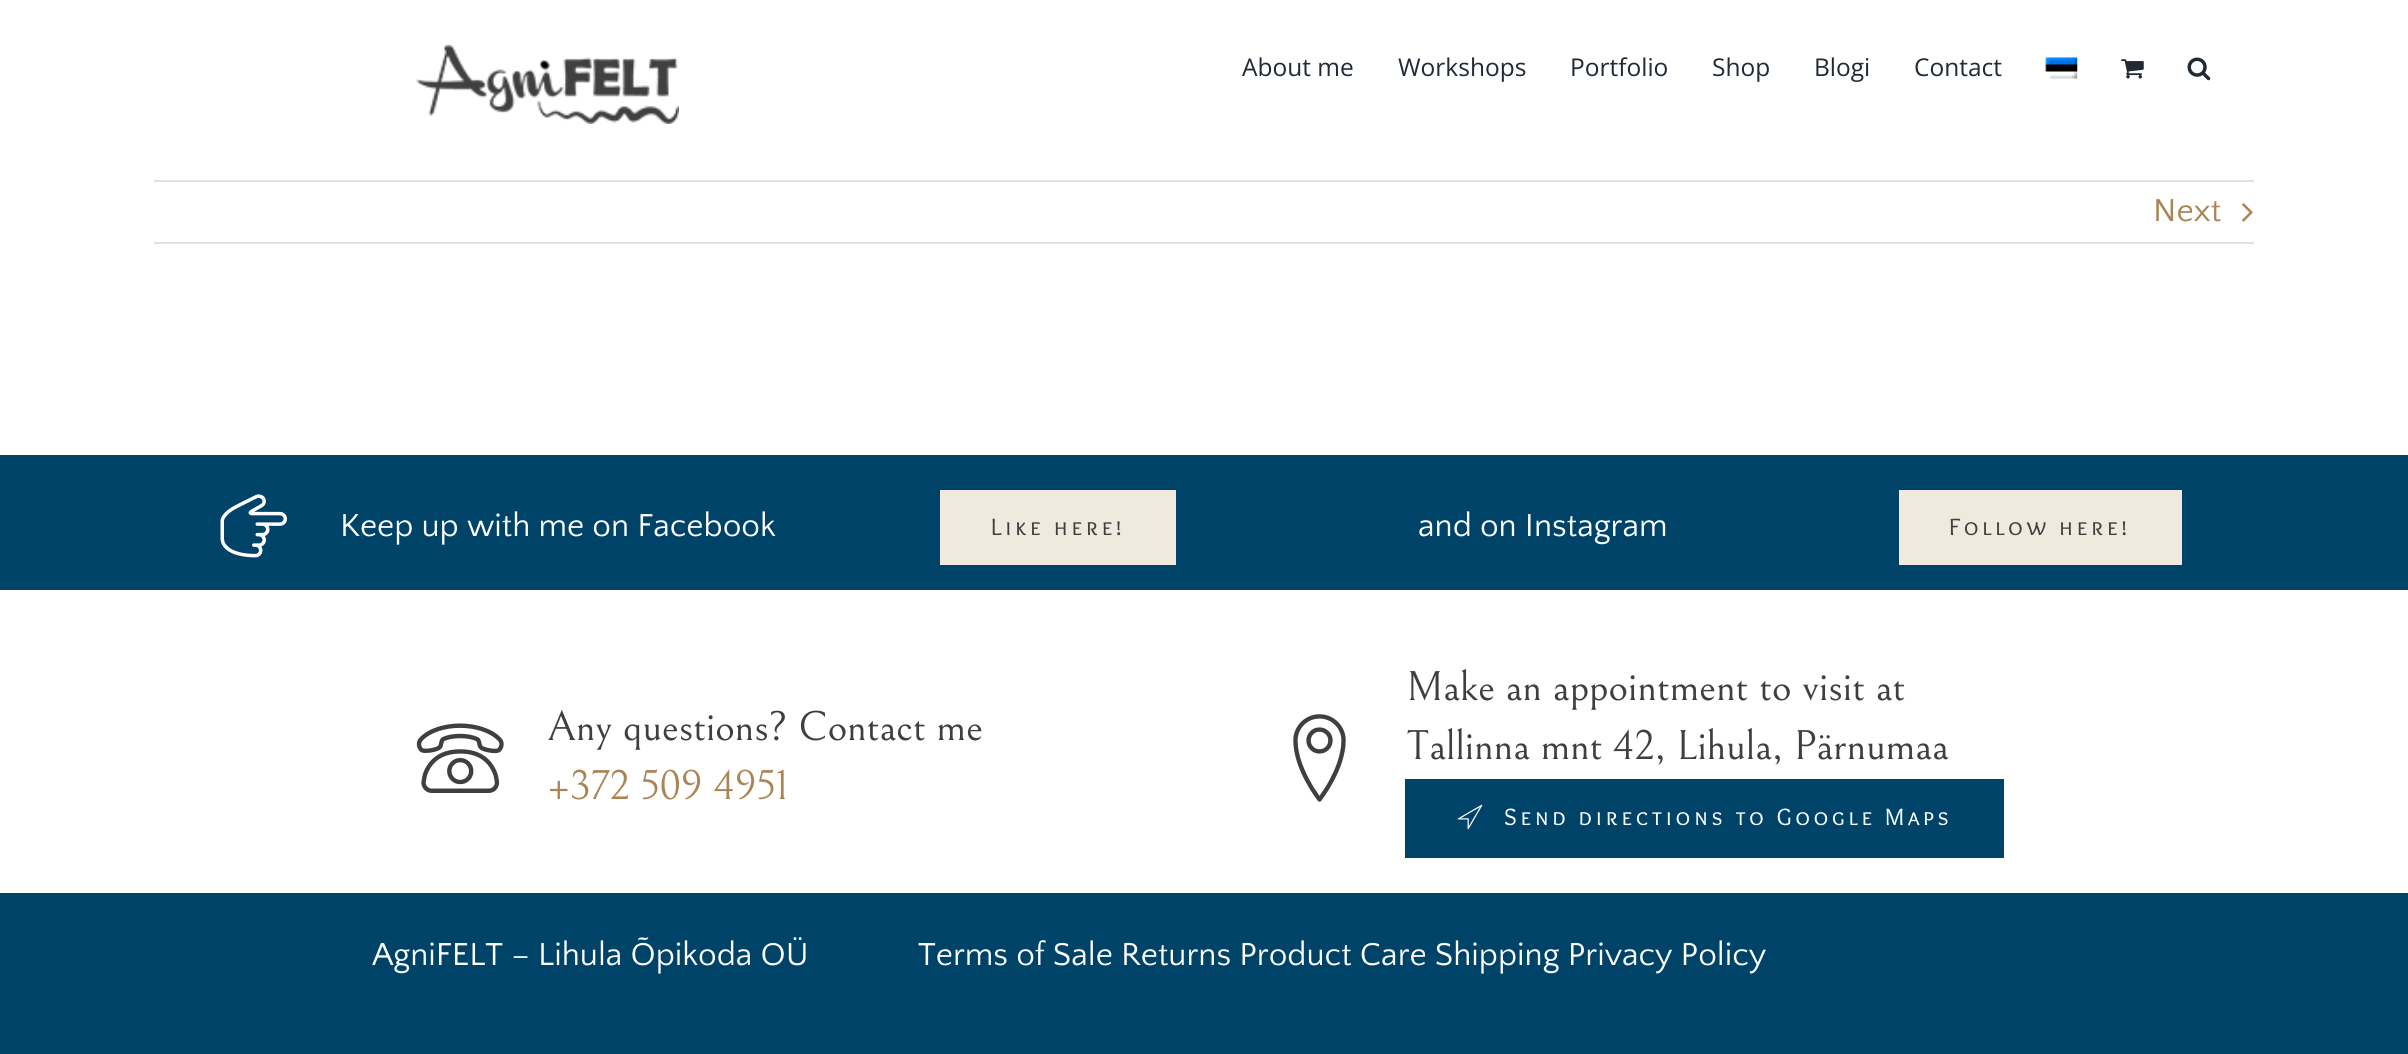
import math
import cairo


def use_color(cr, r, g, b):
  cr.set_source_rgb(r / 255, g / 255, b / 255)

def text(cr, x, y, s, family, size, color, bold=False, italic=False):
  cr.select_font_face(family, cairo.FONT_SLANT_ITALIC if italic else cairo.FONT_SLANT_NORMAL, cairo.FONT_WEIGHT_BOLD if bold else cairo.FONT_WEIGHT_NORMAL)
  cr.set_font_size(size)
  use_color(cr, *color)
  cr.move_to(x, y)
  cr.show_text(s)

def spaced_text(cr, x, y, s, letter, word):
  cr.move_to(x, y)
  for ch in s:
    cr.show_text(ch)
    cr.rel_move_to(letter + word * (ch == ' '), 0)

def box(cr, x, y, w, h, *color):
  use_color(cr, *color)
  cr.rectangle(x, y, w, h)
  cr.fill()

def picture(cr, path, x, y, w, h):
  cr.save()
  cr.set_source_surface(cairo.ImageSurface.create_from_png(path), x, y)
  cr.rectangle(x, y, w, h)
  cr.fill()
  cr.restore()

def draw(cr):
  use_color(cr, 255, 255, 255)
  cr.paint()
  picture(cr, "img_01.png", 416, 45, 263, 79)
  picture(cr, "img_02.png", 2045, 57, 33, 22)
  picture(cr, "img_03.png", 2121, 59, 23, 20)
  picture(cr, "img_04.png", 2187, 57, 24, 24)
  box(cr, 154, 180, 2100, 2, 226, 226, 226)
  box(cr, 154, 242, 2100, 2, 226, 226, 226)
  picture(cr, "img_05.png", 2242, 203, 11, 19)
  box(cr, 0, 455, 2408, 135, 0, 67, 105)
  picture(cr, "img_06.png", 220, 494, 67, 64)
  box(cr, 940, 490, 236, 75, 239, 234, 221)
  box(cr, 1899, 490, 283, 75, 239, 234, 221)
  picture(cr, "img_07.png", 416, 723, 88, 70)
  picture(cr, "img_08.png", 1293, 714, 53, 88)
  box(cr, 1405, 779, 599, 79, 0, 67, 105)
  picture(cr, "img_09.png", 1457, 804, 26, 26)
  box(cr, 0, 893, 2408, 161, 0, 67, 105)
  text(cr, 1242, 76, "About me", "Open Sans", 24.5, (33, 41, 52))
  text(cr, 1398, 76, "Workshops", "Open Sans", 24.5, (33, 41, 52))
  text(cr, 1570, 76, "Portfolio", "Open Sans", 24.5, (33, 41, 52))
  text(cr, 1712, 76, "Shop", "Open Sans", 24.5, (33, 41, 52))
  text(cr, 1814, 76, "Blogi", "Open Sans", 24.5, (33, 41, 52))
  text(cr, 1914, 76, "Contact", "Open Sans", 24.5, (33, 41, 52))
  text(cr, 2153, 221, "Next", "Quattrocento Sans", 33.25, (170, 132, 85))
  text(cr, 340, 536, "Keep up with me on Facebook", "Quattrocento Sans", 33.25, (255, 255, 255))
  cr.select_font_face("Overlock SC")
  cr.set_font_size(24.5)
  use_color(cr, 63, 63, 63)
  spaced_text(cr, 991, 535, "Like here!", 3.5, 0)
  text(cr, 1418, 536, "and on Instagram", "Quattrocento Sans", 33.25, (255, 255, 255))
  cr.select_font_face("Overlock SC")
  cr.set_font_size(24.5)
  use_color(cr, 63, 63, 63)
  spaced_text(cr, 1949, 535, "Follow here!", 3.5, 0)
  text(cr, 547, 740, "Any questions? Contact me", "Bellefair", 42, (63, 63, 63))
  text(cr, 547, 799, "+372 509 4951", "Bellefair", 42, (170, 132, 85))
  text(cr, 1406, 700, "Make an appointment to visit at", "Bellefair", 42, (63, 63, 63))
  text(cr, 1406, 759, "Tallinna mnt 42, Lihula, Pärnumaa", "Bellefair", 42, (63, 63, 63))
  cr.select_font_face("Overlock SC")
  cr.set_font_size(24.5)
  use_color(cr, 255, 255, 255)
  spaced_text(cr, 1504, 825, "Send directions to Google Maps", 3.5, 0)
  text(cr, 372, 965, "AgniFELT – Lihula Õpikoda OÜ", "Quattrocento Sans", 33.25, (255, 255, 255))
  text(cr, 918, 965, "Terms of Sale Returns Product Care Shipping Privacy Policy", "Quattrocento Sans", 33.25, (255, 255, 255))


surface = cairo.ImageSurface(cairo.FORMAT_RGB24, 2408, 1054)
cr = cairo.Context(surface)
options = cairo.FontOptions()
options.set_hint_metrics(cairo.HINT_METRICS_OFF)
options.set_hint_style(cairo.HINT_STYLE_NONE)
cr.set_font_options(options)
cr.set_miter_limit(4)
draw(cr)
surface.write_to_png("out.png")
